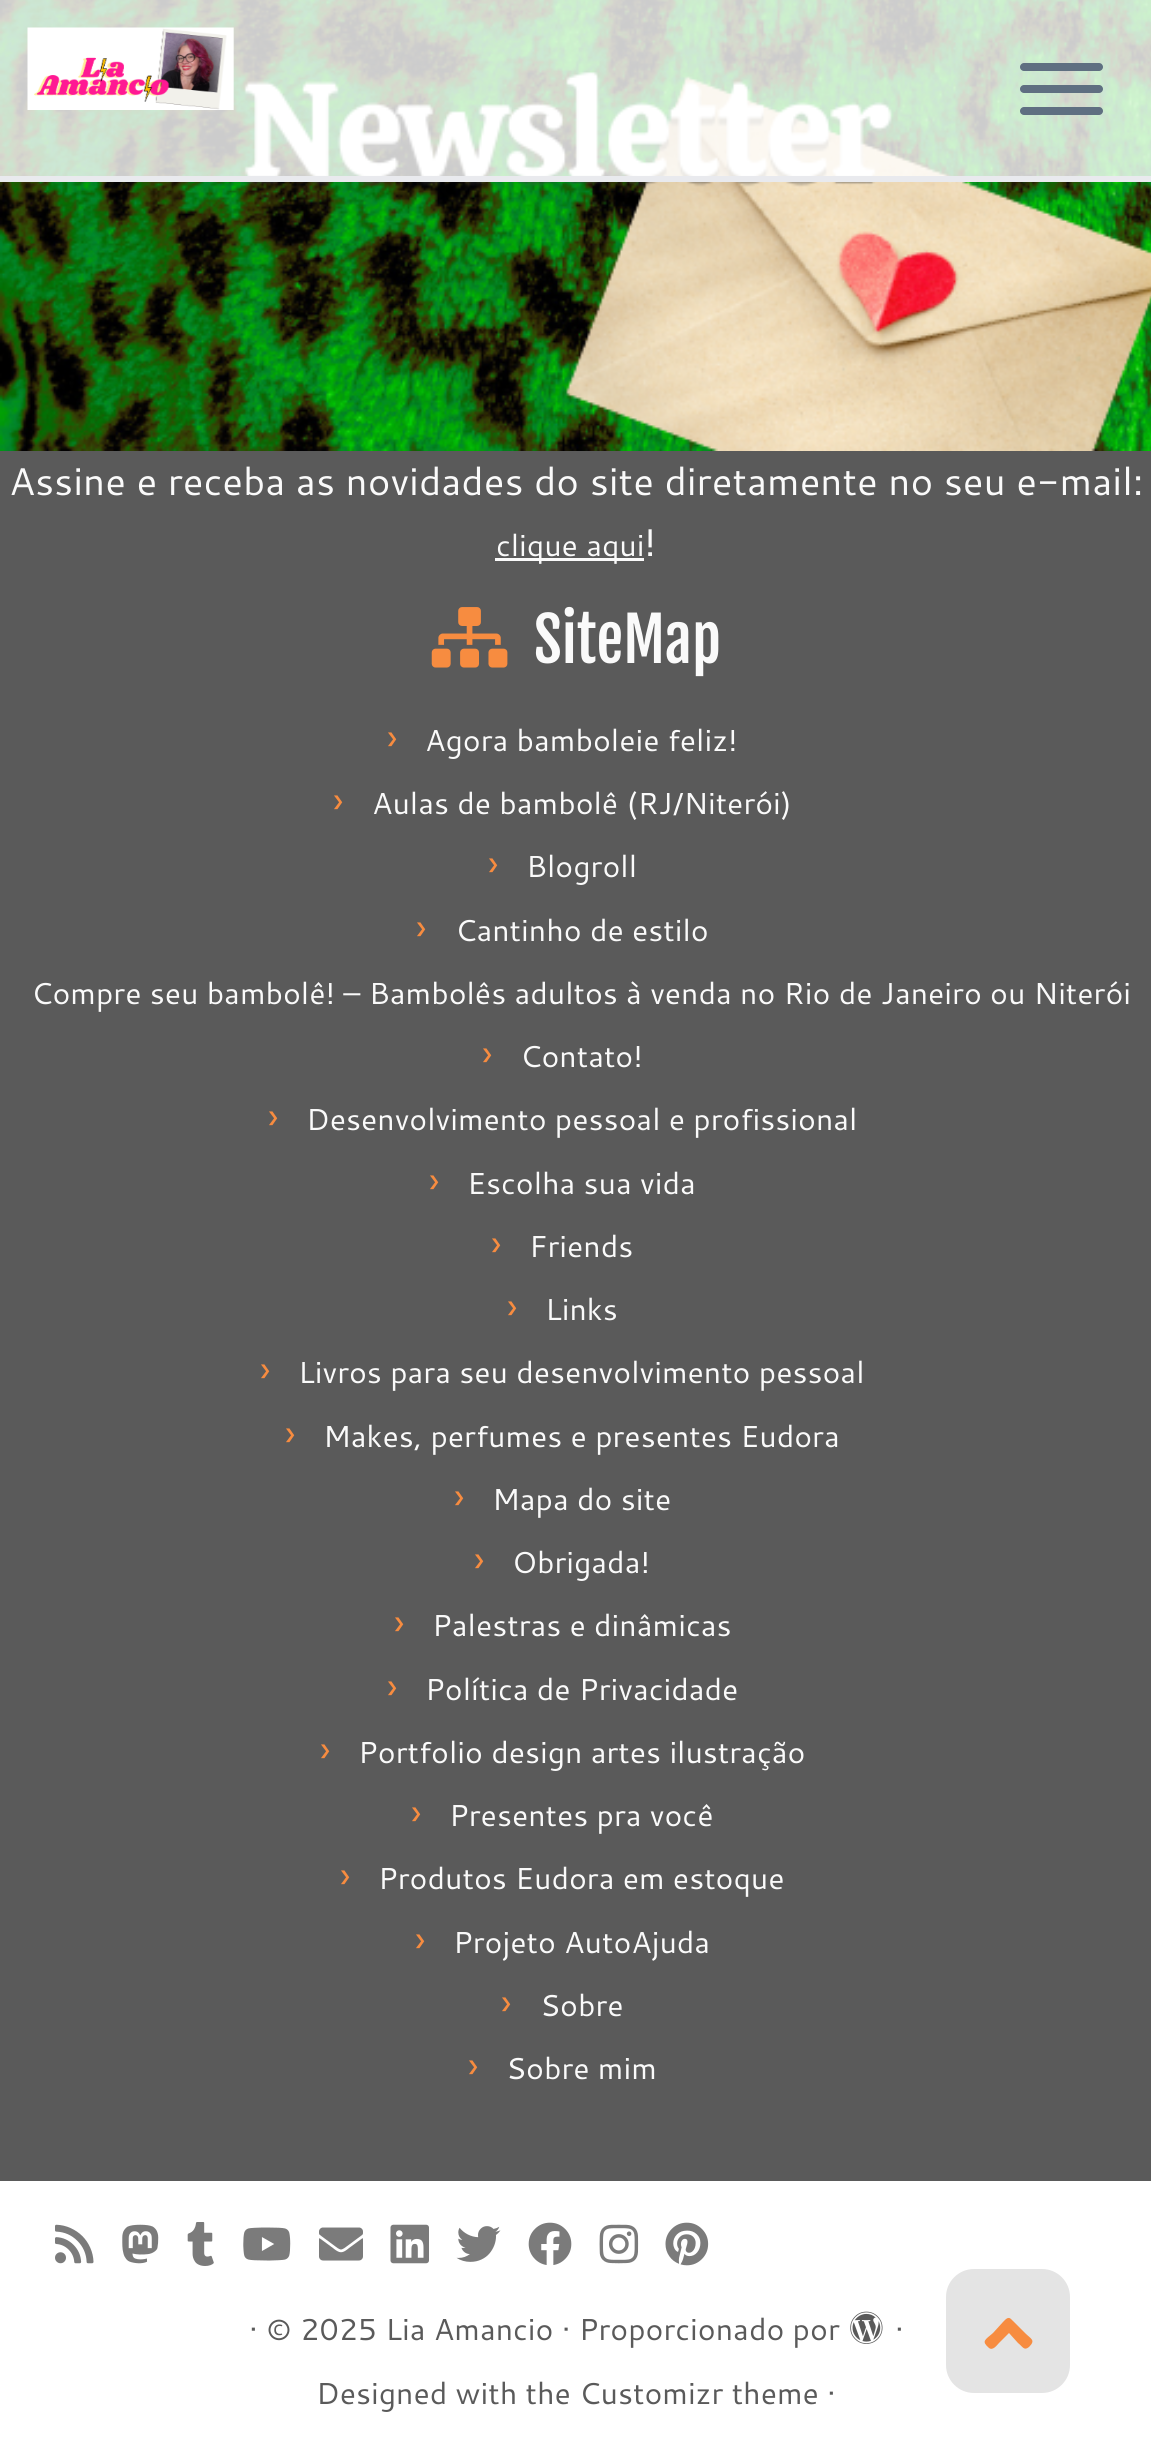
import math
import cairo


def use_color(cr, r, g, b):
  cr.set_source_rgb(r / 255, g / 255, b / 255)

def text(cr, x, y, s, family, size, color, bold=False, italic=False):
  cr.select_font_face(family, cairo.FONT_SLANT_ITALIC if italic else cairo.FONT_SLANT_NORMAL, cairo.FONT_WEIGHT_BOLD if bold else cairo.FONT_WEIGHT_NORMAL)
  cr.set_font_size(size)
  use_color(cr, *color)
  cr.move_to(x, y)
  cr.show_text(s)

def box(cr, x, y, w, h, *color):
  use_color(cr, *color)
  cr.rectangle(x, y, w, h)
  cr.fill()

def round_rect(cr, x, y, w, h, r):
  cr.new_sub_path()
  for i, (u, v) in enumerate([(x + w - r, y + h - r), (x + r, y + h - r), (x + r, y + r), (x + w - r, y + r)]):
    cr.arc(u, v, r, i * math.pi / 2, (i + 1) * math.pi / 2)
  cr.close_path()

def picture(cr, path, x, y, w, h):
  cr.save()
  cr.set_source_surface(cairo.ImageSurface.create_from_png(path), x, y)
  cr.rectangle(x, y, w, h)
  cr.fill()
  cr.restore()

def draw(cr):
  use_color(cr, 90, 90, 90)
  cr.paint()
  picture(cr, "img_02.png", 0, 0, 1151, 451)
  cr.set_source_rgba(1, 1, 1, 0.8)
  cr.rectangle(0, 0, 1151, 176)
  cr.fill()
  box(cr, 0, 176, 1151, 6, 233, 234, 238)
  picture(cr, "img_01.png", 27, 27, 207, 83)
  use_color(cr, 95, 111, 129)
  round_rect(cr, 1020, 63, 83, 8, 4)
  cr.fill()
  round_rect(cr, 1020, 85, 83, 8, 4)
  cr.fill()
  round_rect(cr, 1020, 107, 83, 8, 4)
  cr.fill()
  box(cr, 495, 558, 149, 3, 250, 250, 250)
  picture(cr, "img_03.png", 431, 607, 77, 61)
  box(cr, 0, 2181, 1151, 280, 255, 255, 255)
  picture(cr, "img_04.png", 55, 2224, 39, 40)
  picture(cr, "img_05.png", 122, 2224, 37, 40)
  picture(cr, "img_06.png", 187, 2222, 27, 44)
  picture(cr, "img_07.png", 243, 2227, 48, 34)
  picture(cr, "img_08.png", 319, 2227, 44, 34)
  picture(cr, "img_09.png", 390, 2224, 39, 40)
  picture(cr, "img_10.png", 456, 2226, 45, 36)
  picture(cr, "img_11.png", 528, 2222, 44, 43)
  picture(cr, "img_12.png", 599, 2224, 40, 40)
  picture(cr, "img_13.png", 665, 2222, 44, 44)
  picture(cr, "img_14.png", 850, 2311, 33, 33)
  use_color(cr, 228, 228, 228)
  round_rect(cr, 946, 2269, 124, 124, 28)
  cr.fill()
  use_color(cr, 247, 140, 64)
  cr.new_path()
  cr.move_to(1011, 2319)
  cr.line_to(1025, 2333)
  cr.curve_to(1031, 2339, 1036, 2340, 1029, 2347)
  cr.curve_to(1024, 2351, 1023, 2347, 1018, 2343)
  cr.line_to(1009, 2333)
  cr.line_to(999, 2343)
  cr.curve_to(997, 2345, 993, 2351, 989, 2348)
  cr.curve_to(981, 2341, 985, 2340, 993, 2333)
  cr.line_to(1003, 2322)
  cr.curve_to(1005, 2320, 1008, 2316, 1011, 2319)
  cr.close_path()
  cr.fill()
  text(cr, 9, 495, "Assine e receba as novidades do site diretamente no seu e-mail:", "Cantarell", 38.5, (250, 250, 250))
  text(cr, 496, 556, "clique aqui", "Cantarell", 30.25, (250, 250, 250))
  text(cr, 644, 556, "!", "Cantarell", 38.5, (250, 250, 250))
  text(cr, 534, 663, "SiteMap", "Fjalla One", 60.5, (250, 250, 250))
  text(cr, 387, 751, "›", "Cantarell", 38.5, (247, 140, 64))
  text(cr, 425, 751, "Agora bamboleie feliz!", "Cantarell", 30.25, (250, 250, 250))
  text(cr, 333, 814, "›", "Cantarell", 38.5, (247, 140, 64))
  text(cr, 372, 814, "Aulas de bambolê (RJ/Niterói)", "Cantarell", 30.25, (250, 250, 250))
  text(cr, 488, 877, "›", "Cantarell", 38.5, (247, 140, 64))
  text(cr, 526, 877, "Blogroll", "Cantarell", 30.25, (250, 250, 250))
  text(cr, 416, 941, "›", "Cantarell", 38.5, (247, 140, 64))
  text(cr, 455, 941, "Cantinho de estilo", "Cantarell", 30.25, (250, 250, 250))
  text(cr, 31, 1004, "Compre seu bambolê! – Bambolês adultos à venda no Rio de Janeiro ou Niterói", "Cantarell", 30.25, (250, 250, 250))
  text(cr, 482, 1067, "›", "Cantarell", 38.5, (247, 140, 64))
  text(cr, 520, 1067, "Contato!", "Cantarell", 30.25, (250, 250, 250))
  text(cr, 268, 1130, "›", "Cantarell", 38.5, (247, 140, 64))
  text(cr, 306, 1130, "Desenvolvimento pessoal e profissional", "Cantarell", 30.25, (250, 250, 250))
  text(cr, 429, 1194, "›", "Cantarell", 38.5, (247, 140, 64))
  text(cr, 467, 1194, "Escolha sua vida", "Cantarell", 30.25, (250, 250, 250))
  text(cr, 491, 1257, "›", "Cantarell", 38.5, (247, 140, 64))
  text(cr, 529, 1257, "Friends", "Cantarell", 30.25, (250, 250, 250))
  text(cr, 507, 1320, "›", "Cantarell", 38.5, (247, 140, 64))
  text(cr, 545, 1320, "Links", "Cantarell", 30.25, (250, 250, 250))
  text(cr, 260, 1383, "›", "Cantarell", 38.5, (247, 140, 64))
  text(cr, 298, 1383, "Livros para seu desenvolvimento pessoal", "Cantarell", 30.25, (250, 250, 250))
  text(cr, 285, 1447, "›", "Cantarell", 38.5, (247, 140, 64))
  text(cr, 323, 1447, "Makes, perfumes e presentes Eudora", "Cantarell", 30.25, (250, 250, 250))
  text(cr, 454, 1510, "›", "Cantarell", 38.5, (247, 140, 64))
  text(cr, 492, 1510, "Mapa do site", "Cantarell", 30.25, (250, 250, 250))
  text(cr, 474, 1573, "›", "Cantarell", 38.5, (247, 140, 64))
  text(cr, 512, 1573, "Obrigada!", "Cantarell", 30.25, (250, 250, 250))
  text(cr, 394, 1636, "›", "Cantarell", 38.5, (247, 140, 64))
  text(cr, 432, 1636, "Palestras e dinâmicas", "Cantarell", 30.25, (250, 250, 250))
  text(cr, 387, 1700, "›", "Cantarell", 38.5, (247, 140, 64))
  text(cr, 425, 1700, "Política de Privacidade", "Cantarell", 30.25, (250, 250, 250))
  text(cr, 320, 1763, "›", "Cantarell", 38.5, (247, 140, 64))
  text(cr, 358, 1763, "Portfolio design artes ilustração", "Cantarell", 30.25, (250, 250, 250))
  text(cr, 411, 1826, "›", "Cantarell", 38.5, (247, 140, 64))
  text(cr, 449, 1826, "Presentes pra você", "Cantarell", 30.25, (250, 250, 250))
  text(cr, 340, 1889, "›", "Cantarell", 38.5, (247, 140, 64))
  text(cr, 378, 1889, "Produtos Eudora em estoque", "Cantarell", 30.25, (250, 250, 250))
  text(cr, 415, 1953, "›", "Cantarell", 38.5, (247, 140, 64))
  text(cr, 453, 1953, "Projeto AutoAjuda", "Cantarell", 30.25, (250, 250, 250))
  text(cr, 501, 2016, "›", "Cantarell", 38.5, (247, 140, 64))
  text(cr, 540, 2016, "Sobre", "Cantarell", 30.25, (250, 250, 250))
  text(cr, 468, 2079, "›", "Cantarell", 38.5, (247, 140, 64))
  text(cr, 506, 2079, "Sobre mim", "Cantarell", 30.25, (250, 250, 250))
  text(cr, 249, 2340, "· © 2025 Lia Amancio · Proporcionado por", "Cantarell", 30.25, (90, 90, 90))
  text(cr, 895, 2340, "·", "Cantarell", 30.25, (90, 90, 90))
  text(cr, 316, 2404, "Designed with the Customizr theme ·", "Cantarell", 30.25, (90, 90, 90))


surface = cairo.ImageSurface(cairo.FORMAT_RGB24, 1151, 2461)
cr = cairo.Context(surface)
options = cairo.FontOptions()
options.set_hint_metrics(cairo.HINT_METRICS_OFF)
options.set_hint_style(cairo.HINT_STYLE_NONE)
cr.set_font_options(options)
cr.set_miter_limit(4)
draw(cr)
surface.write_to_png("out.png")
